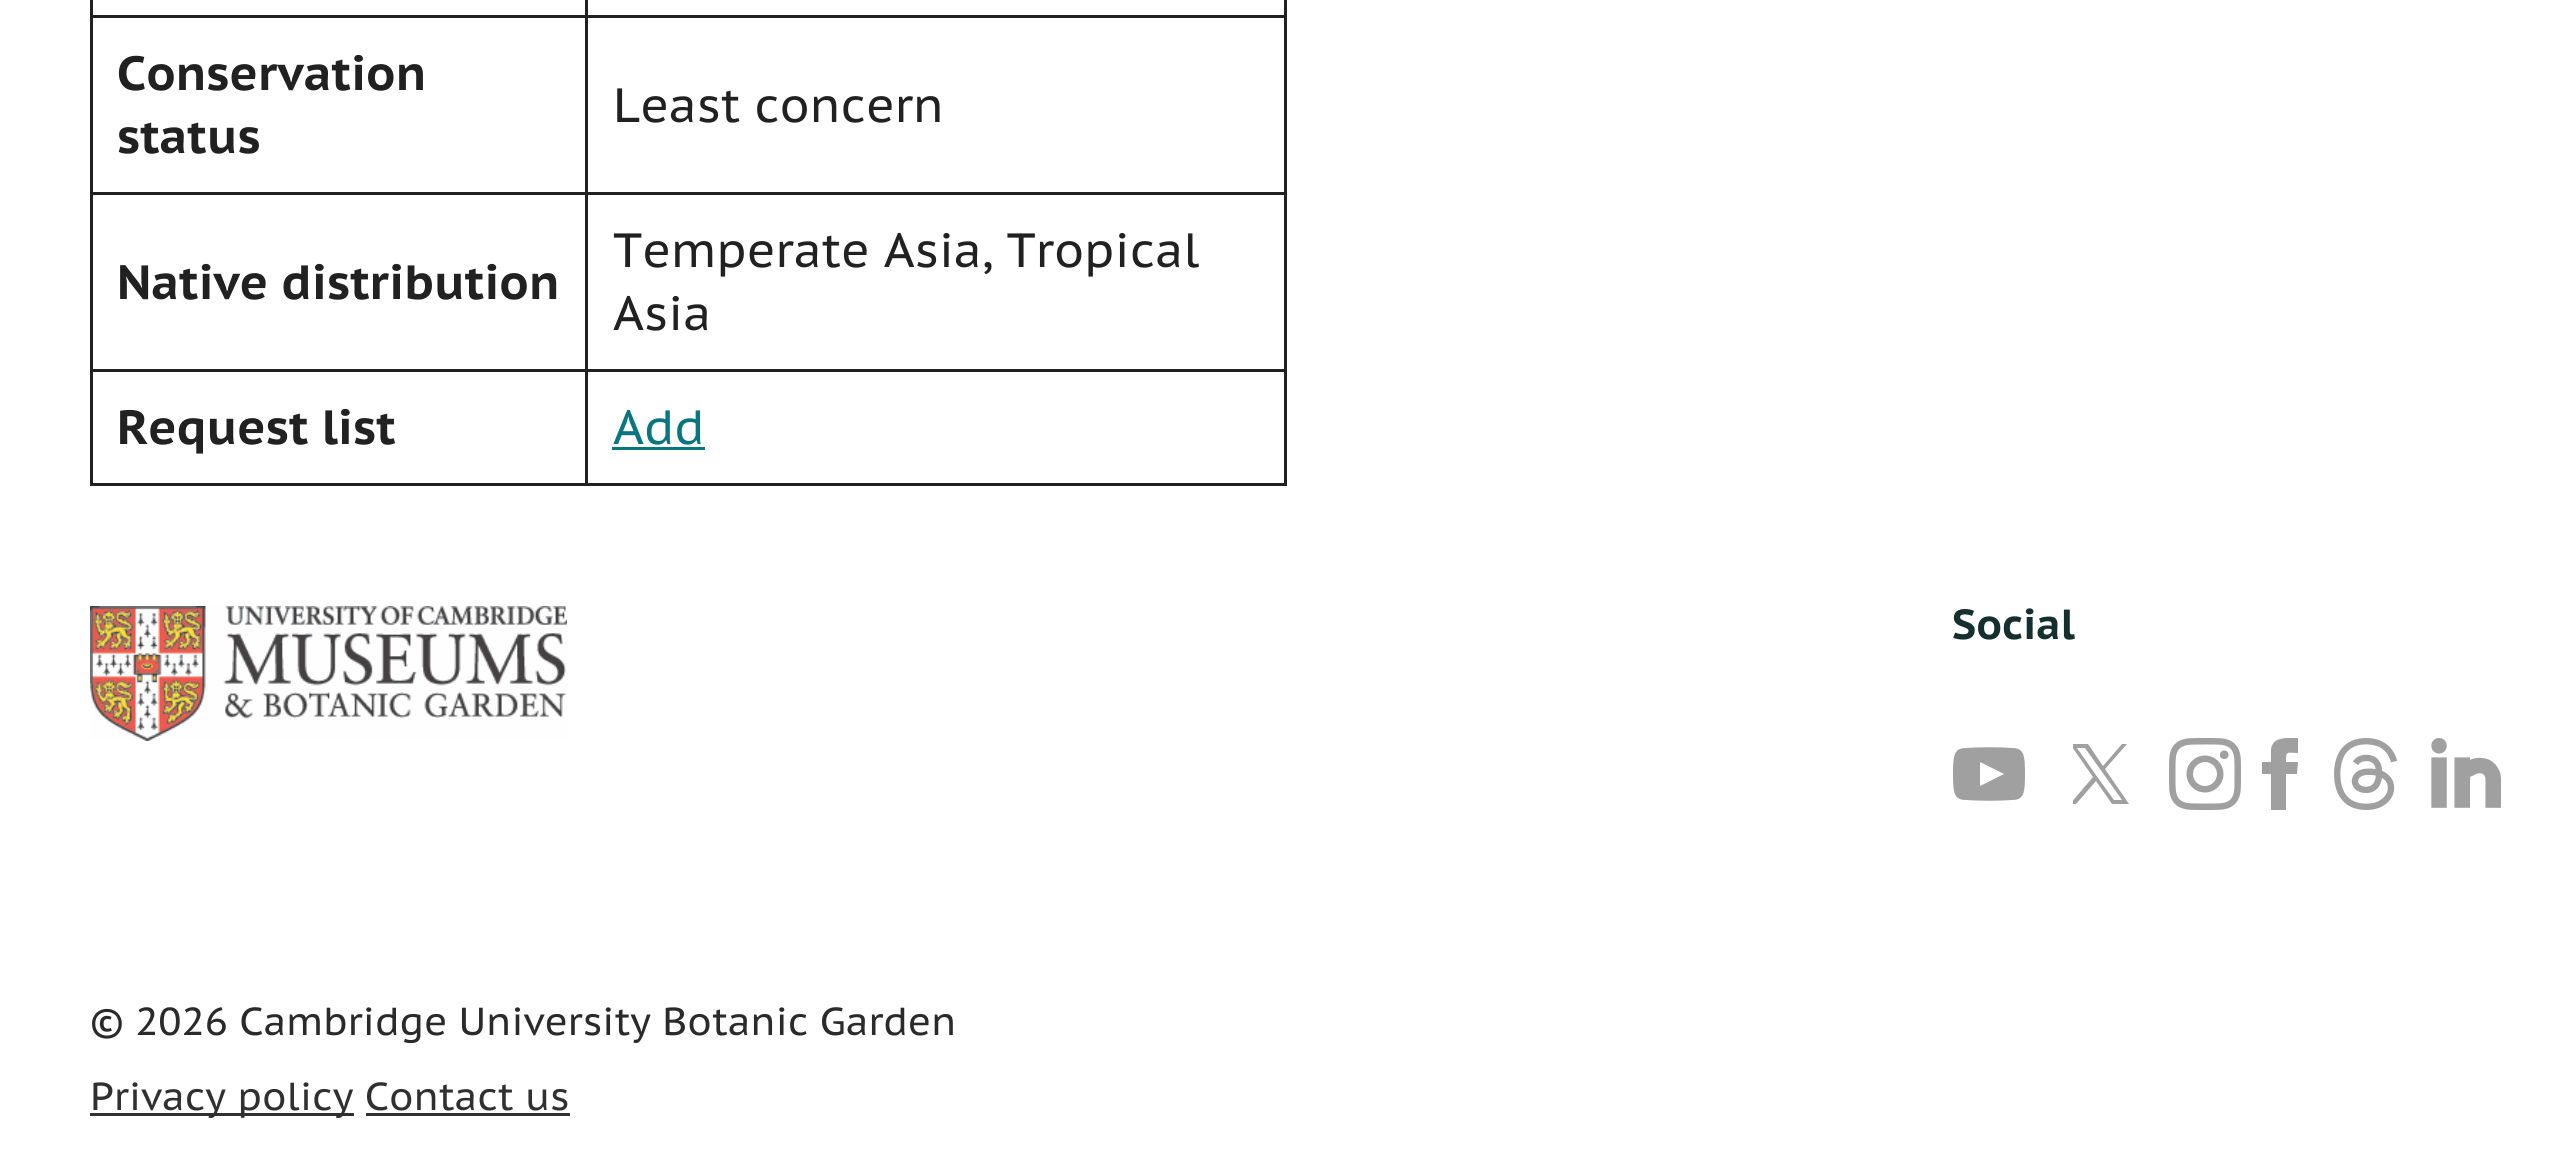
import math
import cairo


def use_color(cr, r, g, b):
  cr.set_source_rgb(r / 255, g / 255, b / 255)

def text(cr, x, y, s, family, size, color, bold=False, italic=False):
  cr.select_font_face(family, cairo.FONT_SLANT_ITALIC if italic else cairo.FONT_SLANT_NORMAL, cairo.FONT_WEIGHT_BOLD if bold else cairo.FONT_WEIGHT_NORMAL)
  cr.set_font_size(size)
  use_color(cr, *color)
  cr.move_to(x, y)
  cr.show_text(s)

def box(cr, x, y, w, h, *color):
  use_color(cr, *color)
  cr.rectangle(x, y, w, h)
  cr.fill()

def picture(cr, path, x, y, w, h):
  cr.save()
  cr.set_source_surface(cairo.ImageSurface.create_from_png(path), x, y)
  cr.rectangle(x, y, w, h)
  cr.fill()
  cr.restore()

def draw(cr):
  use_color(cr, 255, 255, 255)
  cr.paint()
  box(cr, 585, 15, 702, 3, 33, 33, 33)
  box(cr, 585, 192, 702, 3, 33, 33, 33)
  box(cr, 585, 369, 702, 3, 33, 33, 33)
  box(cr, 1284, 369, 3, 117, 33, 33, 33)
  box(cr, 585, 483, 702, 3, 33, 33, 33)
  box(cr, 585, 369, 3, 117, 33, 33, 33)
  box(cr, 90, 369, 498, 3, 33, 33, 33)
  box(cr, 585, 192, 3, 180, 33, 33, 33)
  box(cr, 90, 192, 498, 3, 33, 33, 33)
  box(cr, 585, 15, 3, 180, 33, 33, 33)
  box(cr, 90, 15, 498, 3, 33, 33, 33)
  box(cr, 585, 0, 3, 18, 33, 33, 33)
  box(cr, 90, 483, 498, 3, 33, 33, 33)
  box(cr, 90, 369, 3, 117, 33, 33, 33)
  box(cr, 90, 192, 3, 180, 33, 33, 33)
  box(cr, 90, 0, 3, 195, 33, 33, 33)
  box(cr, 1284, 192, 3, 180, 33, 33, 33)
  box(cr, 1284, 0, 3, 195, 33, 33, 33)
  box(cr, 612, 447, 93, 3, 9, 117, 126)
  picture(cr, "img_01.png", 90, 606, 477, 135)
  use_color(cr, 160, 160, 160)
  cr.new_path()
  cr.move_to(2012, 748)
  cr.curve_to(2001, 747, 1977, 747, 1966, 748)
  cr.curve_to(1954, 748, 1953, 755, 1953, 774)
  cr.curve_to(1953, 793, 1954, 800, 1966, 800)
  cr.curve_to(1977, 801, 2001, 801, 2012, 800)
  cr.curve_to(2024, 800, 2025, 793, 2025, 774)
  cr.curve_to(2025, 755, 2024, 748, 2012, 748)
  cr.close_path()
  cr.move_to(1980, 786)
  cr.line_to(1980, 762)
  cr.line_to(2004, 774)
  cr.close_path()
  cr.fill()
  cr.save()
  cr.rectangle(2073, 744, 56, 60)
  cr.clip()
  cr.new_path()
  cr.move_to(2105, 769)
  cr.line_to(2127, 744)
  cr.line_to(2122, 744)
  cr.line_to(2103, 766)
  cr.line_to(2088, 744)
  cr.line_to(2070, 744)
  cr.line_to(2093, 777)
  cr.line_to(2070, 804)
  cr.line_to(2076, 804)
  cr.line_to(2096, 781)
  cr.line_to(2112, 804)
  cr.line_to(2129, 804)
  cr.close_path()
  cr.move_to(2098, 778)
  cr.line_to(2077, 748)
  cr.line_to(2085, 748)
  cr.line_to(2122, 800)
  cr.line_to(2114, 800)
  cr.close_path()
  cr.fill()
  cr.restore()
  picture(cr, "img_02.png", 2169, 738, 72, 72)
  cr.save()
  cr.rectangle(2262, 738, 36, 72)
  cr.clip()
  cr.new_path()
  cr.move_to(2271, 762)
  cr.line_to(2262, 762)
  cr.line_to(2262, 774)
  cr.line_to(2271, 774)
  cr.line_to(2271, 810)
  cr.line_to(2286, 810)
  cr.line_to(2286, 774)
  cr.line_to(2297, 774)
  cr.line_to(2298, 762)
  cr.line_to(2286, 762)
  cr.curve_to(2286, 750, 2287, 753, 2298, 753)
  cr.line_to(2298, 738)
  cr.curve_to(2288, 738, 2273, 736, 2271, 749)
  cr.close_path()
  cr.fill()
  cr.restore()
  picture(cr, "img_03.png", 2334, 738, 64, 72)
  picture(cr, "img_04.png", 2431, 738, 70, 70)
  box(cr, 90, 1113, 264, 3, 48, 48, 48)
  box(cr, 366, 1113, 204, 3, 48, 48, 48)
  text(cr, 117, 90, "Conservation", "PT Sans Caption", 48, (33, 33, 33), bold=True)
  text(cr, 117, 153, "status", "PT Sans Caption", 48, (33, 33, 33), bold=True)
  text(cr, 613, 122, "Least concern", "PT Sans Caption", 48, (33, 33, 33))
  text(cr, 117, 299, "Native distribution", "PT Sans Caption", 48, (33, 33, 33), bold=True)
  text(cr, 613, 267, "Temperate Asia, Tropical", "PT Sans Caption", 48, (33, 33, 33))
  text(cr, 613, 330, "Asia", "PT Sans Caption", 48, (33, 33, 33))
  text(cr, 117, 444, "Request list", "PT Sans Caption", 48, (33, 33, 33), bold=True)
  text(cr, 613, 444, "Add", "PT Sans Caption", 48, (9, 117, 126))
  text(cr, 1952, 639, "Social", "PT Sans Caption", 42, (21, 47, 47), bold=True)
  text(cr, 90, 1035, "© 2026 Cambridge University Botanic Garden", "PT Sans Caption", 39, (42, 42, 42))
  text(cr, 90, 1110, "Privacy policy Contact us", "PT Sans Caption", 39, (48, 48, 48))


surface = cairo.ImageSurface(cairo.FORMAT_RGB24, 2570, 1161)
cr = cairo.Context(surface)
options = cairo.FontOptions()
options.set_hint_metrics(cairo.HINT_METRICS_OFF)
options.set_hint_style(cairo.HINT_STYLE_NONE)
cr.set_font_options(options)
cr.set_miter_limit(4)
draw(cr)
surface.write_to_png("out.png")
